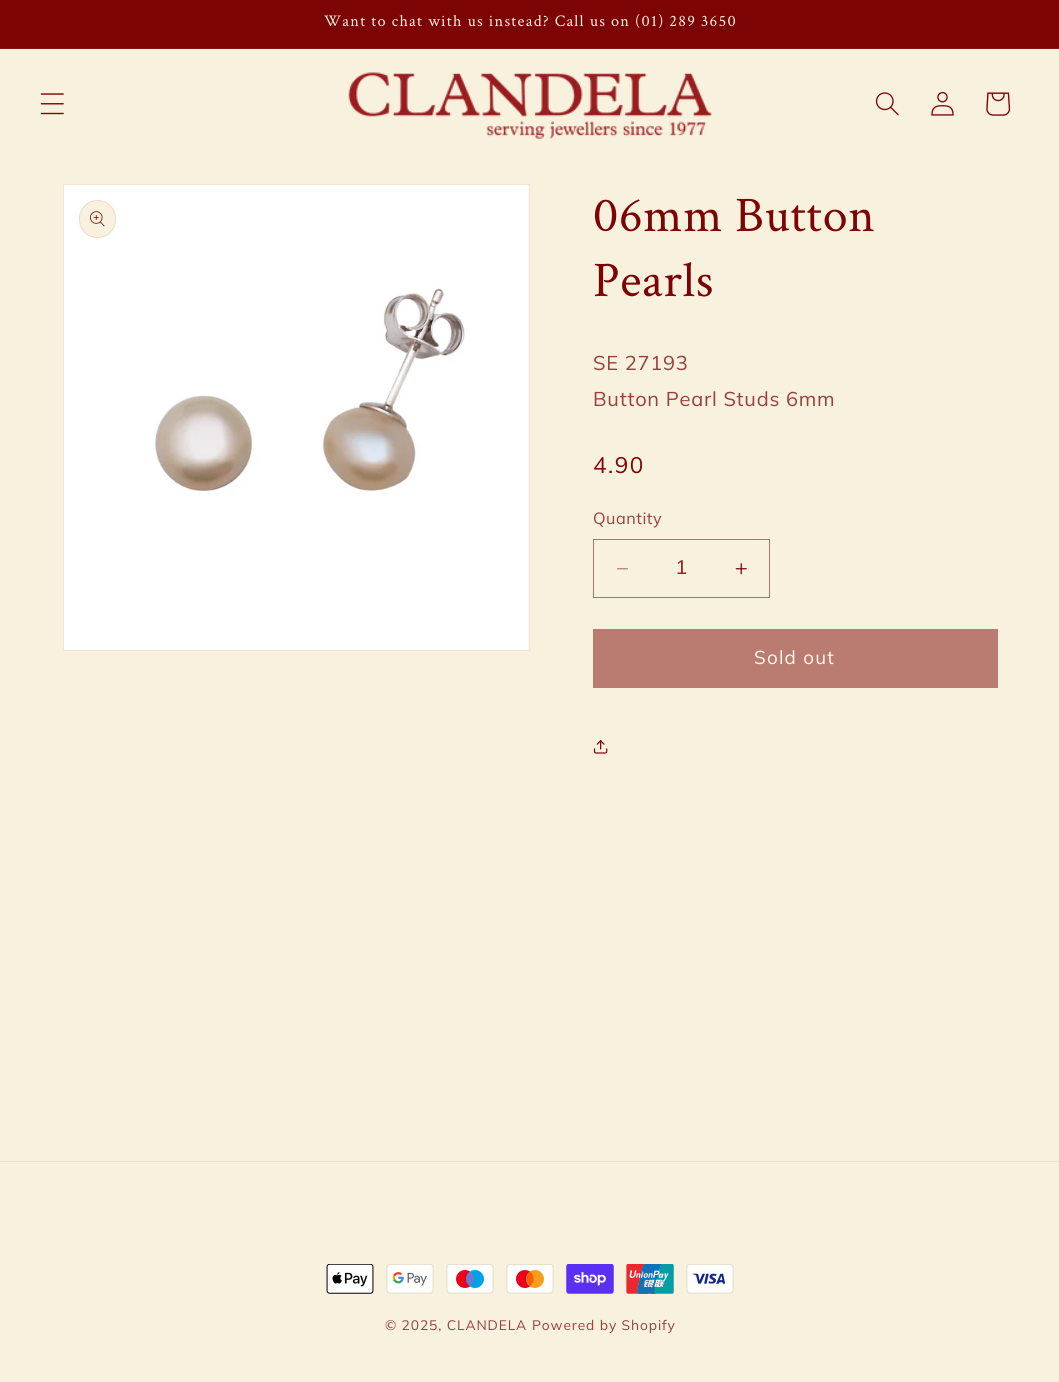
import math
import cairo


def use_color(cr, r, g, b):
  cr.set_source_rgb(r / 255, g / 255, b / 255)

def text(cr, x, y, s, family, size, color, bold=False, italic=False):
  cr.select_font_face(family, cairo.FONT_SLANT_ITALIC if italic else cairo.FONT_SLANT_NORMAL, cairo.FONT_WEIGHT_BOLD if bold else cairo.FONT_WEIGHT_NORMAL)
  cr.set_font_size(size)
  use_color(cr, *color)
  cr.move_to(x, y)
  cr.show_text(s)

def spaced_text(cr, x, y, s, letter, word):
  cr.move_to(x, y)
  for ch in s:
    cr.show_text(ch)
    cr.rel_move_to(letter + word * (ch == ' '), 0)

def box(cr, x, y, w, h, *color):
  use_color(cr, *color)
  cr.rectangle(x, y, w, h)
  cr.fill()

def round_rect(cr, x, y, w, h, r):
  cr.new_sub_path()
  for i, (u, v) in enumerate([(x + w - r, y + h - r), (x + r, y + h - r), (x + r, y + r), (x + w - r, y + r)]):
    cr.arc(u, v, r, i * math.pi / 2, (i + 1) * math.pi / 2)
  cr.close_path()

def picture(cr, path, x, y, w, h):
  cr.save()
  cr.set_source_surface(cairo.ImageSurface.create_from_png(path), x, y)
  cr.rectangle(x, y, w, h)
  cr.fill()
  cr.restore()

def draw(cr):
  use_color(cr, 248, 241, 222)
  cr.paint()
  box(cr, 0, 0, 1059, 48, 124, 4, 4)
  box(cr, 0, 48, 1059, 1, 134, 23, 21)
  picture(cr, "img_01.png", 40, 93, 24, 22)
  picture(cr, "img_02.png", 348, 72, 364, 67)
  picture(cr, "img_03.png", 875, 92, 24, 24)
  picture(cr, "img_04.png", 931, 91, 23, 25)
  picture(cr, "img_05.png", 986, 92, 25, 24)
  cr.rectangle(63.5, 184.5, 466, 466)
  use_color(cr, 242, 229, 211)
  cr.set_line_width(1)
  cr.stroke()
  picture(cr, "img_06.png", 64, 185, 465, 465)
  use_color(cr, 248, 241, 222)
  round_rect(cr, 79, 200, 37, 38, 18.5)
  cr.fill()
  round_rect(cr, 79.5, 200.5, 36, 37, 18)
  cr.set_source_rgba(0.486, 0.016, 0.016, 0.1)
  cr.stroke()
  picture(cr, "img_07.png", 90, 211, 15, 16)
  picture(cr, "img_08.png", 617, 568, 11, 2)
  picture(cr, "img_09.png", 735, 563, 12, 12)
  cr.rectangle(593.5, 539.5, 176, 58)
  use_color(cr, 180, 111, 102)
  cr.stroke()
  box(cr, 593, 629, 405, 59, 186, 123, 113)
  picture(cr, "img_10.png", 593, 740, 15, 14)
  box(cr, 0, 1161, 1059, 1, 238, 222, 205)
  picture(cr, "img_11.png", 326, 1264, 48, 30)
  picture(cr, "img_12.png", 386, 1264, 48, 30)
  picture(cr, "img_13.png", 446, 1264, 48, 30)
  picture(cr, "img_14.png", 506, 1264, 48, 30)
  picture(cr, "img_15.png", 566, 1264, 48, 30)
  picture(cr, "img_16.png", 626, 1264, 48, 30)
  picture(cr, "img_17.png", 686, 1264, 48, 30)
  cr.select_font_face("Crimson Text")
  cr.set_font_size(16.25)
  use_color(cr, 248, 241, 222)
  spaced_text(cr, 324, 26, "Want to chat with us instead? Call us on (01) 289 3650", 1.25, 0)
  cr.set_font_size(50)
  use_color(cr, 124, 4, 4)
  spaced_text(cr, 593, 231, "06mm Button", 0.75, 0)
  spaced_text(cr, 593, 296, "Pearls", 0.75, 0)
  cr.select_font_face("Muli")
  cr.set_font_size(20)
  use_color(cr, 155, 63, 59)
  spaced_text(cr, 593, 370, "SE 27193", 0.75, 0)
  spaced_text(cr, 593, 406, "Button Pearl Studs 6mm", 0.75, 0)
  cr.set_font_size(22.5)
  use_color(cr, 124, 4, 4)
  spaced_text(cr, 593, 473, "4.90", 1.5, 0)
  cr.set_font_size(16.25)
  use_color(cr, 155, 63, 59)
  spaced_text(cr, 593, 524, "Quantity", 0.5, 0)
  text(cr, 676, 574, "1", "Liberation Sans", 20, (143, 40, 37))
  cr.select_font_face("Muli")
  cr.set_font_size(18.75)
  use_color(cr, 252, 248, 239)
  spaced_text(cr, 754, 664, "Sold out", 1.25, 0)
  cr.set_font_size(13.75)
  use_color(cr, 155, 63, 59)
  spaced_text(cr, 385, 1330, "© 2025, CLANDELA", 0.9, 0)
  spaced_text(cr, 532, 1330, "Powered by Shopify", 0.9, 0)


surface = cairo.ImageSurface(cairo.FORMAT_RGB24, 1059, 1382)
cr = cairo.Context(surface)
options = cairo.FontOptions()
options.set_hint_metrics(cairo.HINT_METRICS_OFF)
options.set_hint_style(cairo.HINT_STYLE_NONE)
cr.set_font_options(options)
cr.set_miter_limit(4)
draw(cr)
surface.write_to_png("out.png")
